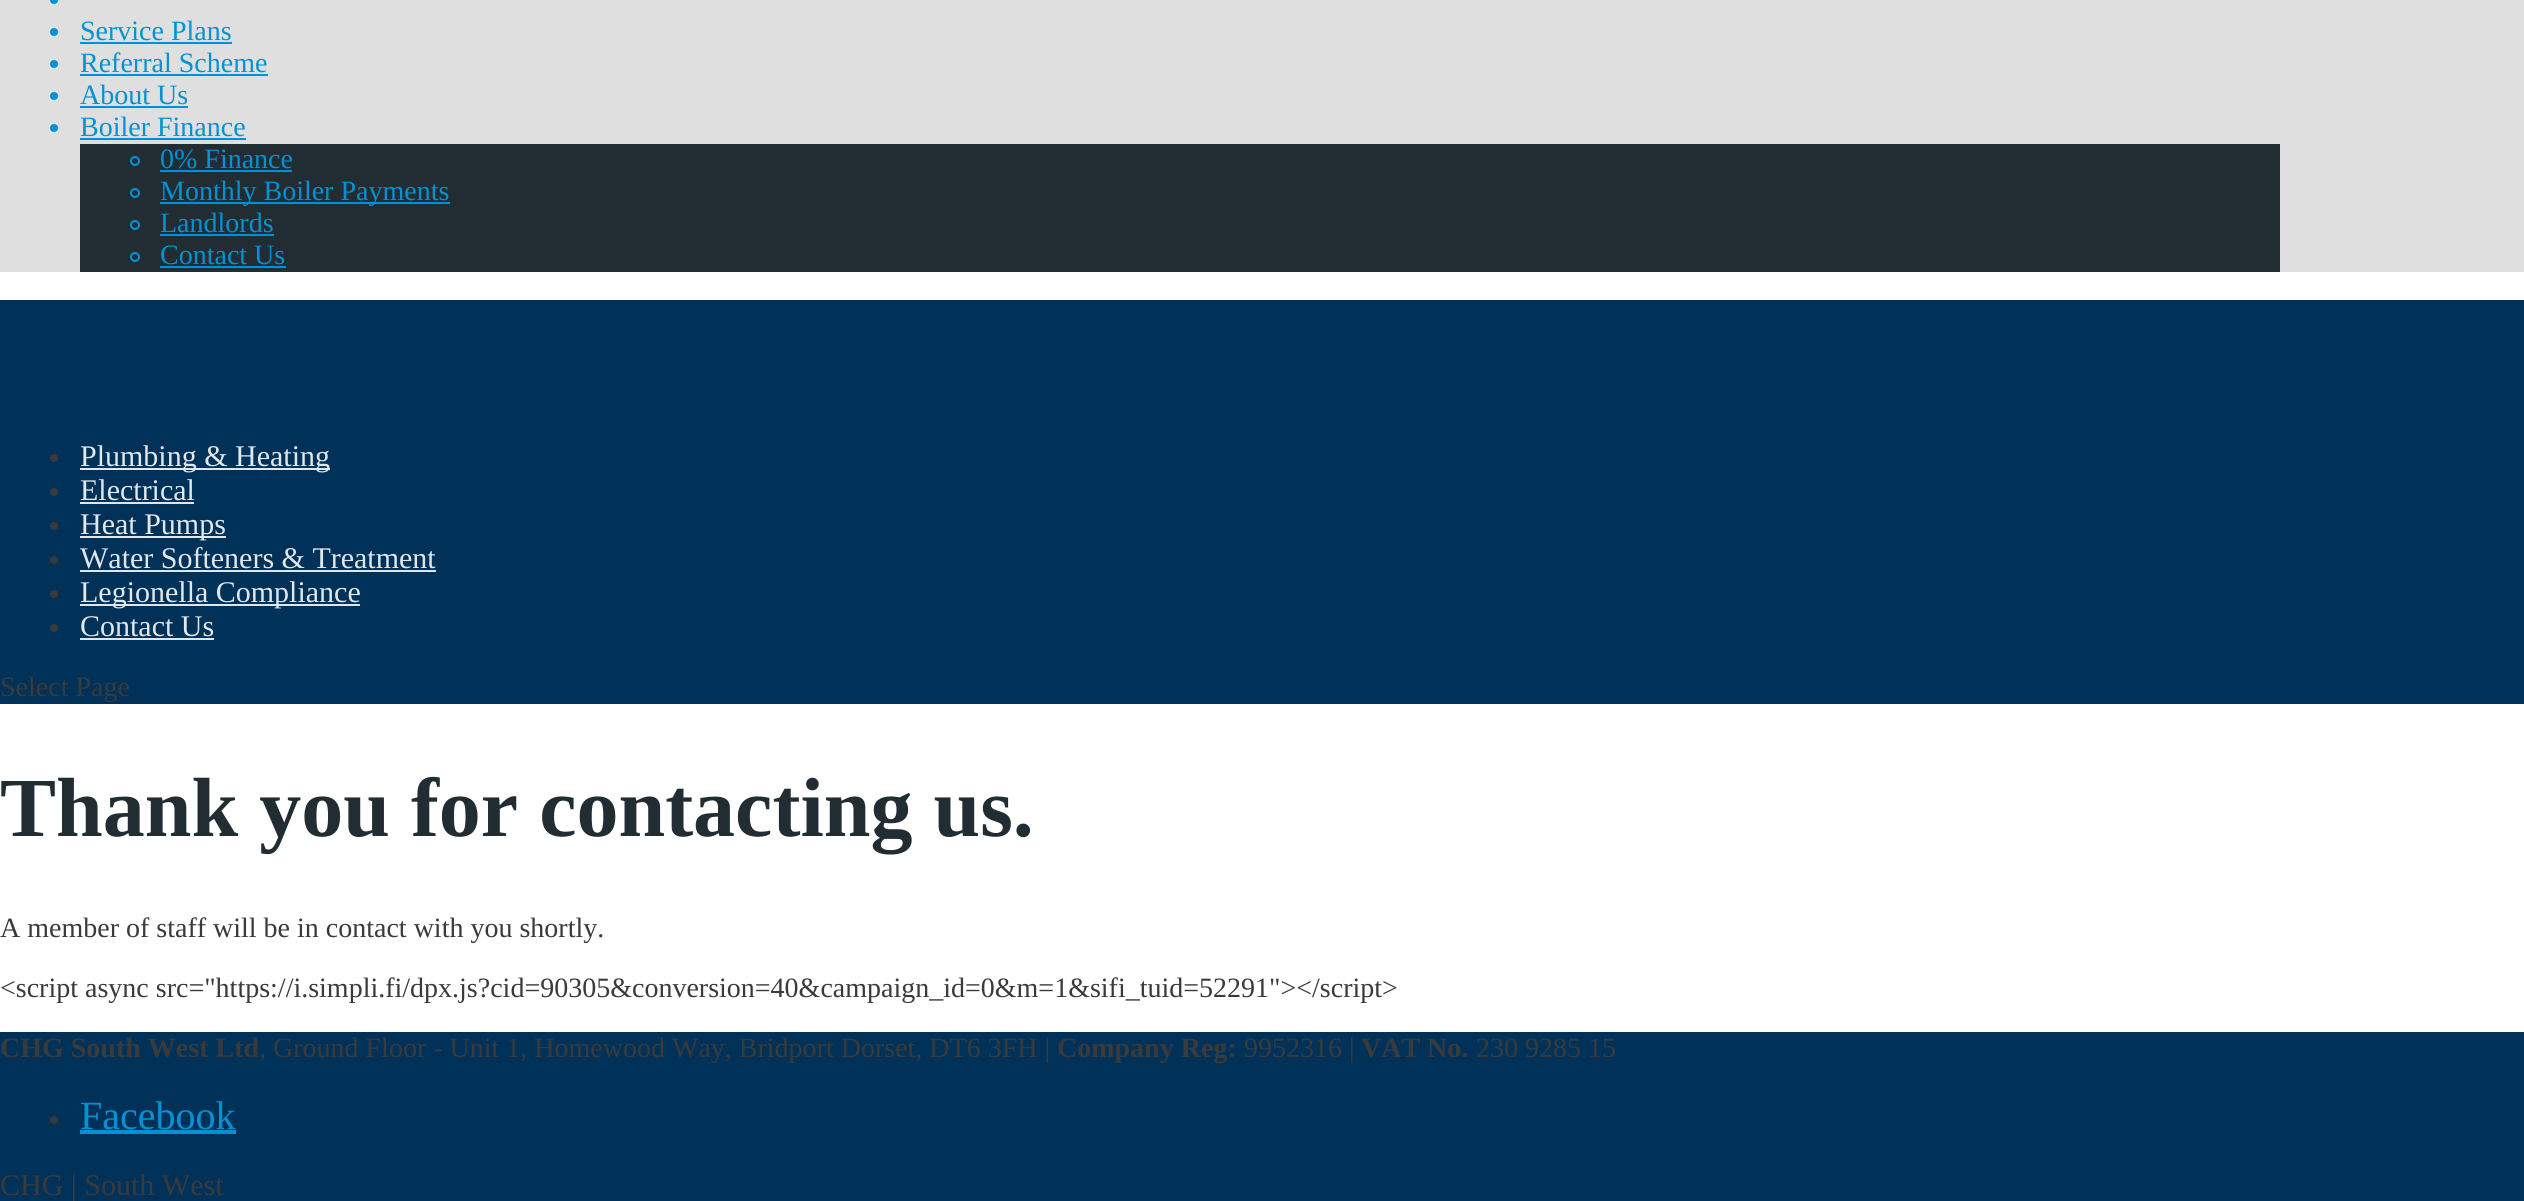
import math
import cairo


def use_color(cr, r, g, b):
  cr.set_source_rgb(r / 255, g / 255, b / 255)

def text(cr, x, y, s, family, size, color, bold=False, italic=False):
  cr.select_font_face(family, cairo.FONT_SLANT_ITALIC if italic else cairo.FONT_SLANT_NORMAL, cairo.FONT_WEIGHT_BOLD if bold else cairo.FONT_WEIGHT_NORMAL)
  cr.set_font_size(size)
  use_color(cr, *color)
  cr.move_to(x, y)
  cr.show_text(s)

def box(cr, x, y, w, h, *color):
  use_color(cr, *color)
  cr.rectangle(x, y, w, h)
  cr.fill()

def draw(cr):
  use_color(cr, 255, 255, 255)
  cr.paint()
  box(cr, 0, 0, 2524, 272, 224, 223, 223)
  use_color(cr, 0, 146, 212)
  cr.arc(54, 0, 4, 0, 2 * math.pi)
  cr.fill()
  cr.arc(54, 32, 4, 0, 2 * math.pi)
  cr.fill()
  box(cr, 80, 42, 152, 2, 0, 146, 212)
  cr.arc(54, 64, 4, 0, 2 * math.pi)
  cr.fill()
  box(cr, 80, 74, 188, 2, 0, 146, 212)
  cr.arc(54, 96, 4, 0, 2 * math.pi)
  cr.fill()
  box(cr, 80, 106, 108, 2, 0, 146, 212)
  cr.arc(54, 128, 4, 0, 2 * math.pi)
  cr.fill()
  box(cr, 80, 138, 166, 2, 0, 146, 212)
  box(cr, 80, 144, 2200, 128, 33, 45, 51)
  cr.arc(135, 161, 4, 0, 2 * math.pi)
  use_color(cr, 0, 146, 212)
  cr.stroke()
  box(cr, 160, 170, 132, 2, 0, 146, 212)
  cr.arc(135, 193, 4, 0, 2 * math.pi)
  cr.stroke()
  box(cr, 160, 202, 290, 2, 0, 146, 212)
  cr.arc(135, 225, 4, 0, 2 * math.pi)
  cr.stroke()
  box(cr, 160, 234, 114, 2, 0, 146, 212)
  cr.arc(135, 257, 4, 0, 2 * math.pi)
  cr.stroke()
  box(cr, 160, 266, 126, 2, 0, 146, 212)
  box(cr, 0, 300, 2524, 404, 0, 50, 89)
  use_color(cr, 58, 58, 58)
  cr.arc(54, 458, 4, 0, 2 * math.pi)
  cr.fill()
  box(cr, 80, 468, 250, 2, 224, 230, 235)
  use_color(cr, 58, 58, 58)
  cr.arc(54, 492, 4, 0, 2 * math.pi)
  cr.fill()
  box(cr, 80, 502, 114, 2, 224, 230, 235)
  use_color(cr, 58, 58, 58)
  cr.arc(54, 526, 4, 0, 2 * math.pi)
  cr.fill()
  box(cr, 80, 536, 146, 2, 224, 230, 235)
  use_color(cr, 58, 58, 58)
  cr.arc(54, 560, 4, 0, 2 * math.pi)
  cr.fill()
  box(cr, 80, 570, 356, 2, 224, 230, 235)
  use_color(cr, 58, 58, 58)
  cr.arc(54, 594, 4, 0, 2 * math.pi)
  cr.fill()
  box(cr, 80, 604, 280, 2, 224, 230, 235)
  use_color(cr, 58, 58, 58)
  cr.arc(54, 628, 4, 0, 2 * math.pi)
  cr.fill()
  box(cr, 80, 638, 134, 2, 224, 230, 235)
  box(cr, 0, 1032, 2524, 169, 0, 50, 89)
  use_color(cr, 58, 58, 58)
  cr.arc(54, 1120, 4, 0, 2 * math.pi)
  cr.fill()
  box(cr, 80, 1130, 156, 4, 0, 146, 212)
  text(cr, 80, 40, "Service Plans", "Liberation Serif", 28, (0, 146, 212))
  text(cr, 80, 72, "Referral Scheme", "Liberation Serif", 28, (0, 146, 212))
  text(cr, 80, 104, "About Us", "Liberation Serif", 28, (0, 146, 212))
  text(cr, 80, 136, "Boiler Finance", "Liberation Serif", 28, (0, 146, 212))
  text(cr, 160, 168, "0% Finance", "Liberation Serif", 28, (0, 146, 212))
  text(cr, 160, 200, "Monthly Boiler Payments", "Liberation Serif", 28, (0, 146, 212))
  text(cr, 160, 232, "Landlords", "Liberation Serif", 28, (0, 146, 212))
  text(cr, 160, 264, "Contact Us", "Liberation Serif", 28, (0, 146, 212))
  text(cr, 80, 466, "Plumbing & Heating", "Liberation Serif", 30, (225, 231, 235))
  text(cr, 80, 500, "Electrical", "Liberation Serif", 30, (225, 231, 235))
  text(cr, 80, 534, "Heat Pumps", "Liberation Serif", 30, (225, 231, 235))
  text(cr, 80, 568, "Water Softeners & Treatment", "Liberation Serif", 30, (225, 231, 235))
  text(cr, 80, 602, "Legionella Compliance", "Liberation Serif", 30, (225, 231, 235))
  text(cr, 80, 636, "Contact Us", "Liberation Serif", 30, (225, 231, 235))
  text(cr, 0, 696, "Select Page", "Liberation Serif", 28, (58, 58, 58))
  text(cr, 0, 836, "Thank you for contacting us.", "Liberation Serif", 84, (33, 45, 51), bold=True)
  text(cr, 0, 937, "A member of staff will be in contact with you shortly.", "Liberation Serif", 28, (58, 58, 58))
  text(cr, 0, 997, "<script async src=\"https://i.simpli.fi/dpx.js?cid=90305&conversion=40&campaign_id=0&m=1&sifi_tuid=52291\"></script>", "Liberation Serif", 28, (58, 58, 58))
  text(cr, 0, 1057, "CHG South West Ltd", "Liberation Serif", 28, (58, 58, 58), bold=True)
  text(cr, 259, 1057, ", Ground Floor - Unit 1, Homewood Way, Bridport Dorset, DT6 3FH |", "Liberation Serif", 28, (58, 58, 58))
  text(cr, 1057, 1057, "Company Reg:", "Liberation Serif", 28, (58, 58, 58), bold=True)
  text(cr, 1244, 1057, "9952316 |", "Liberation Serif", 28, (58, 58, 58))
  text(cr, 1361, 1057, "VAT No.", "Liberation Serif", 28, (58, 58, 58), bold=True)
  text(cr, 1476, 1057, "230 9285 15", "Liberation Serif", 28, (58, 58, 58))
  text(cr, 80, 1129, "Facebook", "Liberation Serif", 40, (0, 146, 212))
  text(cr, 0, 1195, "CHG | South West", "Liberation Serif", 30, (58, 58, 58))


surface = cairo.ImageSurface(cairo.FORMAT_RGB24, 2524, 1201)
cr = cairo.Context(surface)
options = cairo.FontOptions()
options.set_hint_metrics(cairo.HINT_METRICS_OFF)
options.set_hint_style(cairo.HINT_STYLE_NONE)
cr.set_font_options(options)
cr.set_miter_limit(4)
draw(cr)
surface.write_to_png("out.png")
